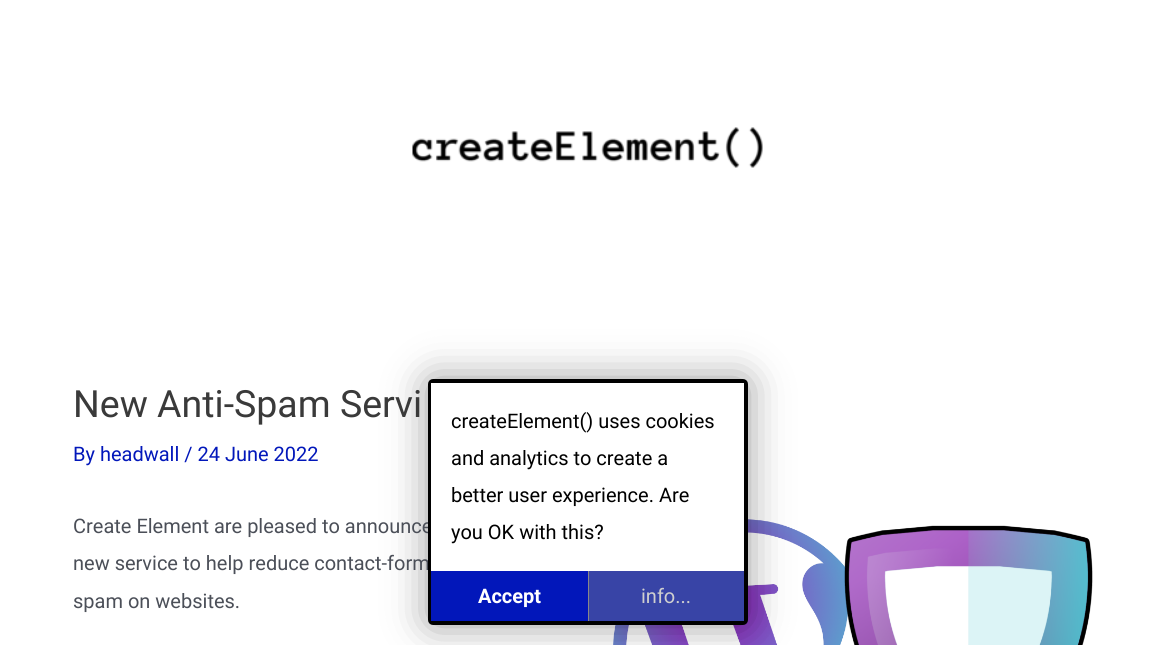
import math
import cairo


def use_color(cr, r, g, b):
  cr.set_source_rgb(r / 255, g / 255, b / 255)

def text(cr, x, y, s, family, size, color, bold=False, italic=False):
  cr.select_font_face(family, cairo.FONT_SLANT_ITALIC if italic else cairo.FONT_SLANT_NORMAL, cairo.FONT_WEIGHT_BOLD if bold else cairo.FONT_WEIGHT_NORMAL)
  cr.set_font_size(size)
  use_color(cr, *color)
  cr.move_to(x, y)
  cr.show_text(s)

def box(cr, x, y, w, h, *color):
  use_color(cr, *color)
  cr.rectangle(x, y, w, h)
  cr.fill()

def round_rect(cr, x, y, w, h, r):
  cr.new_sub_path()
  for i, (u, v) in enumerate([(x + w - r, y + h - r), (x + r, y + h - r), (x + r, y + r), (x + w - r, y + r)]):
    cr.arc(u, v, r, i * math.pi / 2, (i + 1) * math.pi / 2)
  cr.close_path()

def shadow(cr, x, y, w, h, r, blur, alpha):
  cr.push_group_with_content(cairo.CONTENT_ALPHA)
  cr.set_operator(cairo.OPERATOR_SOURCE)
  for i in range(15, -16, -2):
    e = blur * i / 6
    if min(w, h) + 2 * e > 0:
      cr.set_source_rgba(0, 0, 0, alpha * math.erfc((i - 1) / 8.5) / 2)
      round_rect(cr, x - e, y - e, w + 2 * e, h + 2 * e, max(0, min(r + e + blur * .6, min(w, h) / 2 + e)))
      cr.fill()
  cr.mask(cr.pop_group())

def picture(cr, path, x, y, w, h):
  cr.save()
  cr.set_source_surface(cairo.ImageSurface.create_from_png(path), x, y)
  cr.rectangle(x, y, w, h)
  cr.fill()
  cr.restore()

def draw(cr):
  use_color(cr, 255, 255, 255)
  cr.paint()
  picture(cr, "img_01.png", 412, 127, 351, 41)
  picture(cr, "img_02.png", 613, 519, 480, 126)
  use_color(cr, 0, 0, 0)
  shadow(cr, 428, 379, 320, 246, 5, 20, 0.4)
  text(cr, 73, 417, "New Anti-Spam Servi", "Roboto", 37.5, (58, 58, 58))
  text(cr, 73, 461, "By headwall / 24 June 2022", "Roboto", 20, (2, 23, 186))
  text(cr, 73, 533, "Create Element are pleased to announce", "Roboto", 20, (75, 79, 88))
  text(cr, 73, 570, "new service to help reduce contact-form", "Roboto", 20, (75, 79, 88))
  text(cr, 73, 608, "spam on websites.", "Roboto", 20, (75, 79, 88))
  round_rect(cr, 430, 381, 316, 242, 3)
  use_color(cr, 0, 0, 0)
  cr.set_line_width(4)
  cr.stroke()
  box(cr, 431, 383, 313, 188, 255, 255, 255)
  text(cr, 451, 428, "createElement() uses cookies", "Roboto", 20, (0, 0, 0))
  text(cr, 451, 465, "and analytics to create a", "Roboto", 20, (0, 0, 0))
  text(cr, 451, 502, "better user experience. Are", "Roboto", 20, (0, 0, 0))
  text(cr, 451, 539, "you OK with this?", "Roboto", 20, (0, 0, 0))
  box(cr, 588, 571, 1, 50, 136, 136, 136)
  box(cr, 431, 571, 157, 50, 2, 23, 186)
  text(cr, 478, 603, "Accept", "Roboto", 20, (255, 255, 255), bold=True)
  box(cr, 589, 571, 155, 50, 56, 68, 166)
  text(cr, 641, 603, "info...", "Roboto", 20, (207, 207, 207))


surface = cairo.ImageSurface(cairo.FORMAT_RGB24, 1175, 645)
cr = cairo.Context(surface)
options = cairo.FontOptions()
options.set_hint_metrics(cairo.HINT_METRICS_OFF)
options.set_hint_style(cairo.HINT_STYLE_NONE)
cr.set_font_options(options)
cr.set_miter_limit(4)
draw(cr)
surface.write_to_png("out.png")
